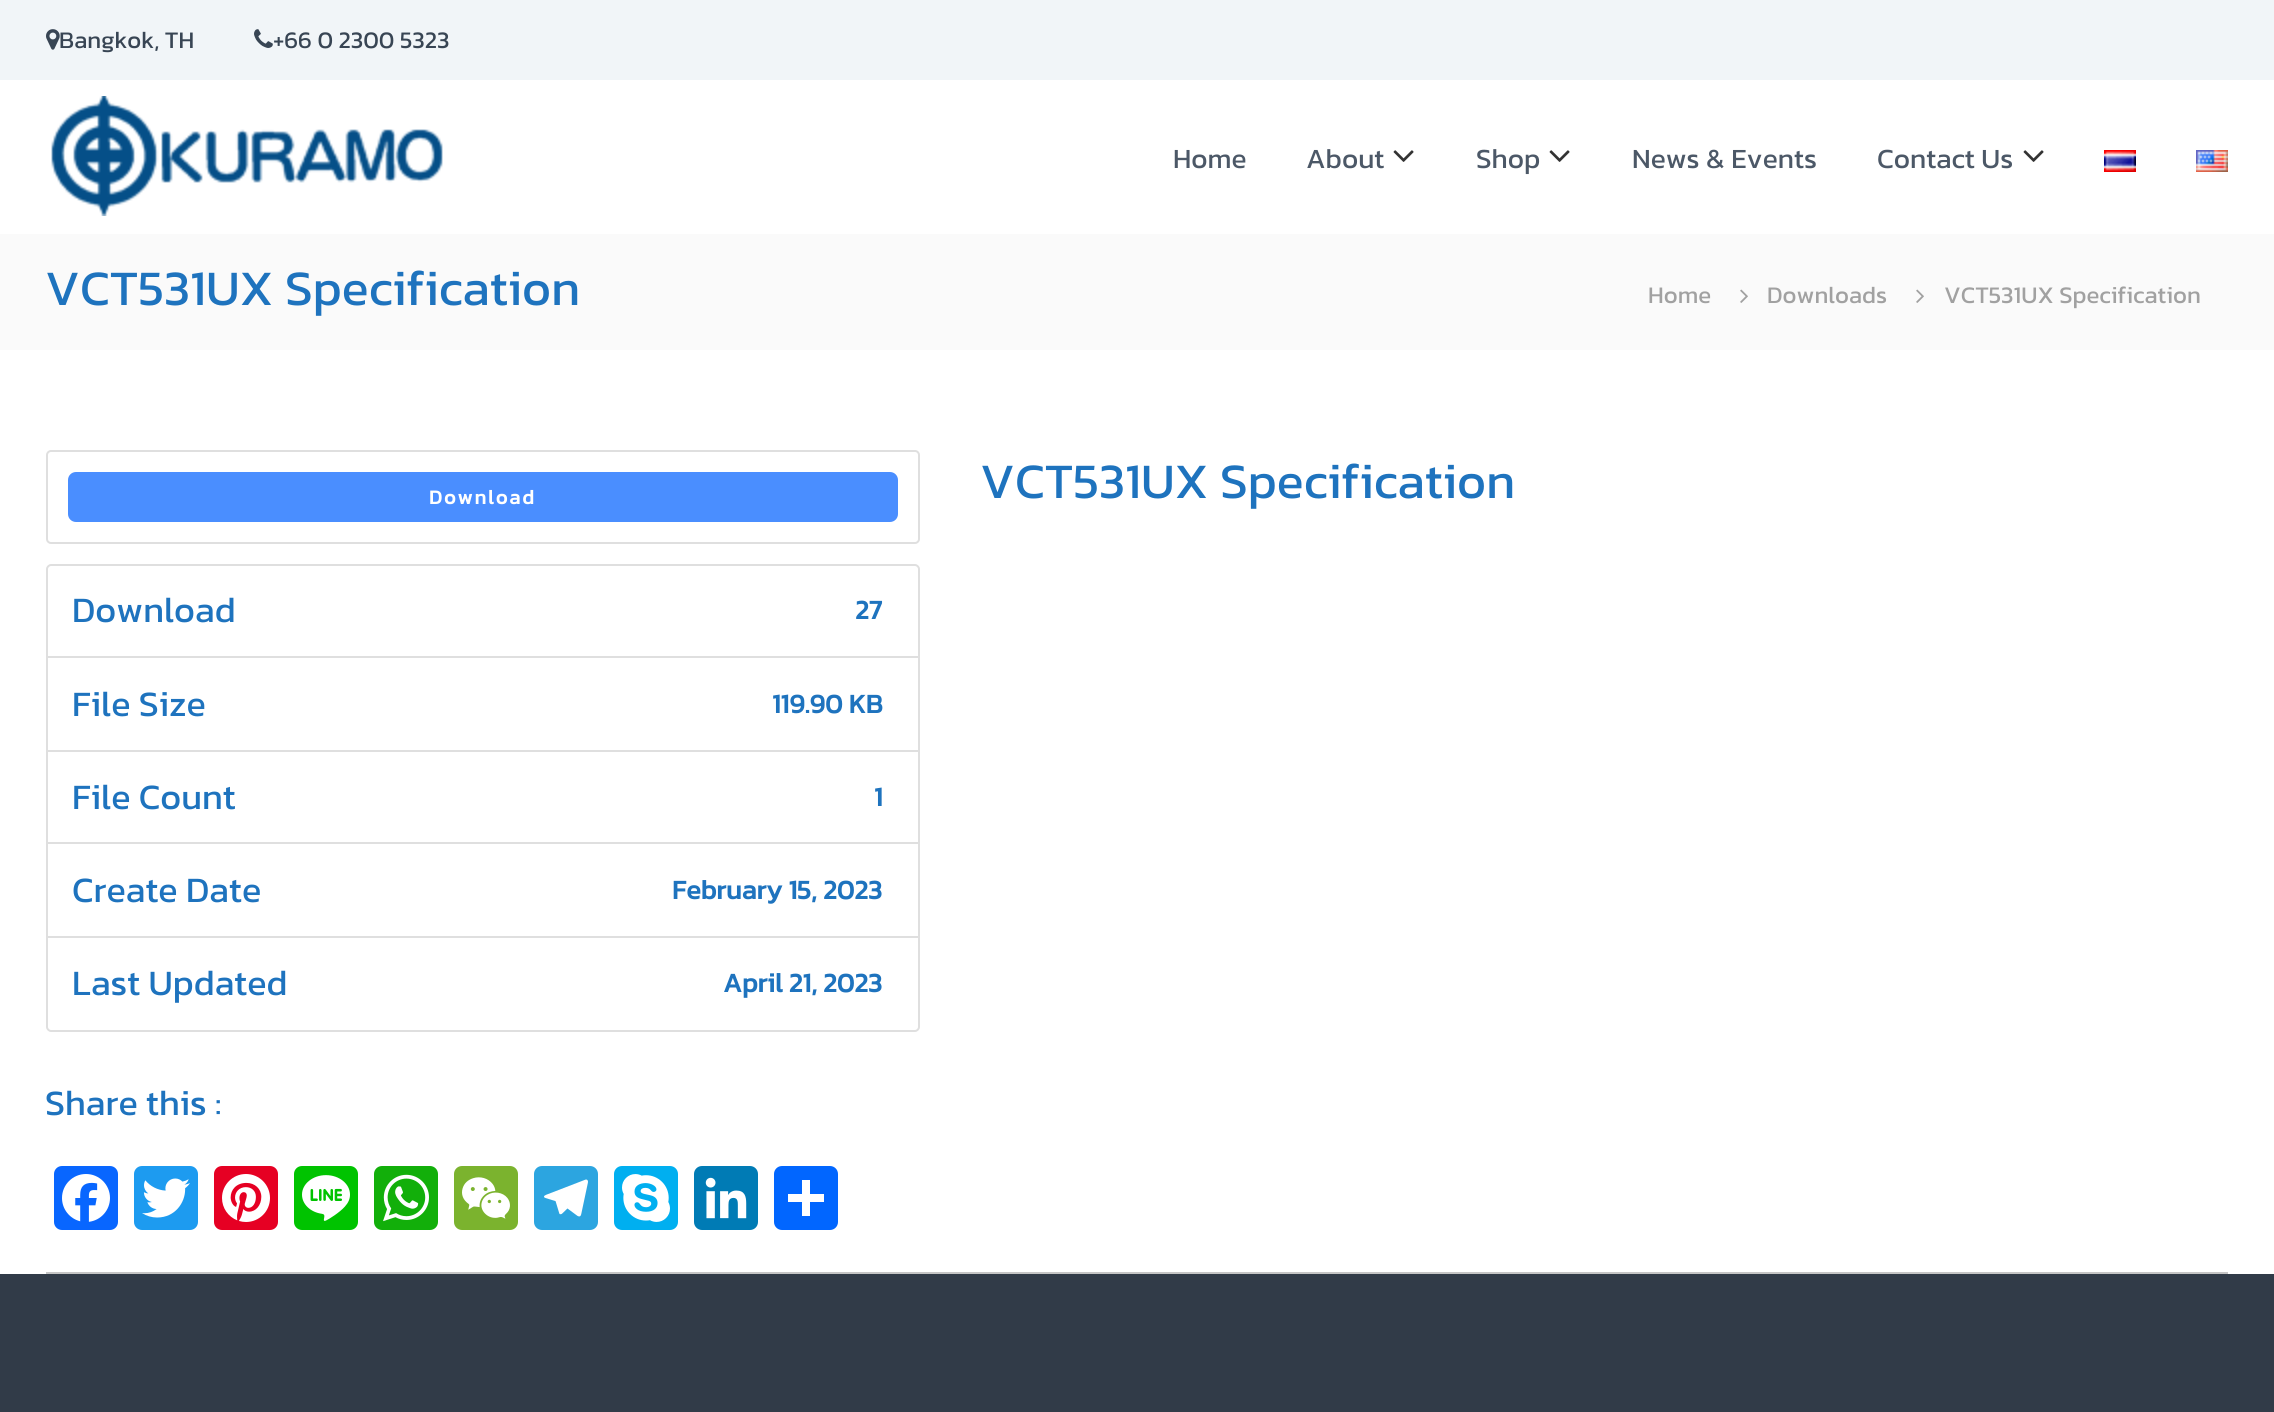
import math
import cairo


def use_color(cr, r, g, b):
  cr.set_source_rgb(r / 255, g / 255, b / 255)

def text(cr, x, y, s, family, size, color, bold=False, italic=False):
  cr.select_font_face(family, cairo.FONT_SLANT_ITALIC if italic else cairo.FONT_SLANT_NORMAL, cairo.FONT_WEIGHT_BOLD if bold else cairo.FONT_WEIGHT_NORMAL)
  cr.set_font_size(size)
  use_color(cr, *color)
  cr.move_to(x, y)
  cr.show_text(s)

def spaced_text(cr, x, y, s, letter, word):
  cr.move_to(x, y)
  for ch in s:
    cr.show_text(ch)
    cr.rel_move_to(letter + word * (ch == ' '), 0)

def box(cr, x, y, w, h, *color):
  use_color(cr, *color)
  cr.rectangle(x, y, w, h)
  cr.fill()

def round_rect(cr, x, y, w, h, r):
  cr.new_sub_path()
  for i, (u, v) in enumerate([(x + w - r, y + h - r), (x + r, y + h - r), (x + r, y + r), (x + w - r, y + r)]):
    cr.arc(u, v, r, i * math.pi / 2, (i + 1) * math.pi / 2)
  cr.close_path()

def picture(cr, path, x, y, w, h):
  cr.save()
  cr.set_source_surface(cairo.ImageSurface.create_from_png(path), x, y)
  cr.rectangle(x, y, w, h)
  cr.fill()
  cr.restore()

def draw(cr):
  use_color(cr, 255, 255, 255)
  cr.paint()
  box(cr, 0, 0, 2274, 80, 241, 245, 248)
  picture(cr, "img_01.png", 46, 29, 14, 21)
  picture(cr, "img_02.png", 254, 29, 19, 19)
  picture(cr, "img_03.png", 51, 96, 392, 120)
  picture(cr, "img_04.png", 1393, 150, 21, 12)
  picture(cr, "img_04.png", 1549, 150, 21, 12)
  picture(cr, "img_04.png", 2023, 150, 21, 12)
  picture(cr, "img_05.png", 2104, 150, 32, 22)
  picture(cr, "img_06.png", 2196, 150, 32, 22)
  box(cr, 0, 234, 2274, 116, 250, 250, 250)
  picture(cr, "img_07.png", 1740, 289, 8, 14)
  picture(cr, "img_07.png", 1916, 289, 8, 14)
  box(cr, 46, 1272, 2182, 2, 197, 197, 197)
  round_rect(cr, 47, 451, 872, 92, 4)
  use_color(cr, 223, 223, 223)
  cr.stroke()
  use_color(cr, 74, 142, 255)
  round_rect(cr, 69, 473, 828, 48, 7)
  cr.fill_preserve()
  cr.stroke()
  cr.new_path()
  cr.move_to(51, 565)
  cr.line_to(915, 565)
  cr.curve_to(917, 565, 919, 567, 919, 569)
  cr.line_to(919, 657)
  cr.line_to(47, 657)
  cr.line_to(47, 569)
  cr.curve_to(47, 567, 49, 565, 51, 565)
  cr.close_path()
  use_color(cr, 223, 223, 223)
  cr.stroke()
  cr.rectangle(47, 657, 872, 94)
  cr.stroke()
  cr.rectangle(47, 751, 872, 92)
  cr.stroke()
  cr.rectangle(47, 843, 872, 94)
  cr.stroke()
  use_color(cr, 255, 255, 255)
  cr.new_path()
  cr.move_to(47, 937)
  cr.line_to(919, 937)
  cr.line_to(919, 1027)
  cr.curve_to(919, 1029, 917, 1031, 915, 1031)
  cr.line_to(51, 1031)
  cr.curve_to(49, 1031, 47, 1029, 47, 1027)
  cr.close_path()
  cr.fill_preserve()
  use_color(cr, 223, 223, 223)
  cr.stroke()
  use_color(cr, 8, 102, 255)
  round_rect(cr, 54, 1166, 64, 64, 8)
  cr.fill()
  picture(cr, "img_08.png", 62, 1174, 48, 48)
  use_color(cr, 29, 155, 240)
  round_rect(cr, 134, 1166, 64, 64, 8)
  cr.fill()
  picture(cr, "img_09.png", 142, 1178, 48, 40)
  use_color(cr, 230, 0, 35)
  round_rect(cr, 214, 1166, 64, 64, 8)
  cr.fill()
  picture(cr, "img_10.png", 222, 1174, 48, 48)
  use_color(cr, 0, 195, 0)
  round_rect(cr, 294, 1166, 64, 64, 8)
  cr.fill()
  picture(cr, "img_11.png", 302, 1175, 48, 46)
  use_color(cr, 18, 175, 10)
  round_rect(cr, 374, 1166, 64, 64, 8)
  cr.fill()
  picture(cr, "img_12.png", 383, 1174, 46, 48)
  use_color(cr, 123, 179, 46)
  round_rect(cr, 454, 1166, 64, 64, 8)
  cr.fill()
  picture(cr, "img_13.png", 462, 1177, 48, 42)
  use_color(cr, 44, 165, 224)
  round_rect(cr, 534, 1166, 64, 64, 8)
  cr.fill()
  picture(cr, "img_14.png", 544, 1179, 44, 38)
  use_color(cr, 0, 175, 240)
  round_rect(cr, 614, 1166, 64, 64, 8)
  cr.fill()
  picture(cr, "img_15.png", 622, 1174, 48, 48)
  use_color(cr, 0, 123, 181)
  round_rect(cr, 694, 1166, 64, 64, 8)
  cr.fill()
  picture(cr, "img_16.png", 705, 1177, 42, 42)
  use_color(cr, 1, 102, 255)
  round_rect(cr, 774, 1166, 64, 64, 8)
  cr.fill()
  box(cr, 802, 1180, 8, 36, 255, 255, 255)
  box(cr, 788, 1194, 36, 8, 255, 255, 255)
  box(cr, 0, 1274, 2274, 138, 49, 59, 72)
  text(cr, 59, 48, "Bangkok, TH", "Kanit", 24, (56, 69, 84))
  text(cr, 273, 48, "+66 0 2300 5323", "Kanit", 24, (56, 69, 84))
  text(cr, 1173, 168, "Home", "Kanit", 28, (76, 88, 103))
  text(cr, 1306, 168, "About", "Kanit", 28, (76, 88, 103))
  text(cr, 1476, 168, "Shop", "Kanit", 28, (76, 88, 103))
  text(cr, 1632, 168, "News & Events", "Kanit", 28, (76, 88, 103))
  text(cr, 1877, 168, "Contact Us", "Kanit", 28, (76, 88, 103))
  text(cr, 45, 305, "VCT531UX Specification", "Kanit", 50, (30, 115, 190))
  text(cr, 1648, 303, "Home", "Kanit", 24, (161, 161, 161))
  text(cr, 1767, 303, "Downloads", "Kanit", 24, (161, 161, 161))
  text(cr, 1944, 303, "VCT531UX Specification", "Kanit", 24, (161, 161, 161))
  cr.select_font_face("Kanit", cairo.FONT_SLANT_NORMAL, cairo.FONT_WEIGHT_BOLD)
  cr.set_font_size(20)
  use_color(cr, 255, 255, 255)
  spaced_text(cr, 429, 504, "Download", 2, 0)
  text(cr, 72, 622, "Download", "Kanit", 36, (30, 115, 190))
  text(cr, 855, 619, "27", "Kanit", 27, (30, 115, 190), bold=True)
  text(cr, 72, 716, "File Size", "Kanit", 36, (30, 115, 190))
  text(cr, 772, 713, "119.90 KB", "Kanit", 27, (30, 115, 190), bold=True)
  text(cr, 72, 809, "File Count", "Kanit", 36, (30, 115, 190))
  text(cr, 874, 806, "1", "Kanit", 27, (30, 115, 190), bold=True)
  text(cr, 72, 902, "Create Date", "Kanit", 36, (30, 115, 190))
  text(cr, 672, 899, "February 15, 2023", "Kanit", 27, (30, 115, 190), bold=True)
  text(cr, 72, 995, "Last Updated", "Kanit", 36, (30, 115, 190))
  text(cr, 723, 992, "April 21, 2023", "Kanit", 27, (30, 115, 190), bold=True)
  text(cr, 980, 498, "VCT531UX Specification", "Kanit", 50, (30, 115, 190))
  text(cr, 45, 1115, "Share this :", "Kanit", 36, (30, 115, 190))


surface = cairo.ImageSurface(cairo.FORMAT_RGB24, 2274, 1412)
cr = cairo.Context(surface)
options = cairo.FontOptions()
options.set_hint_metrics(cairo.HINT_METRICS_OFF)
options.set_hint_style(cairo.HINT_STYLE_NONE)
cr.set_font_options(options)
cr.set_miter_limit(4)
draw(cr)
surface.write_to_png("out.png")
